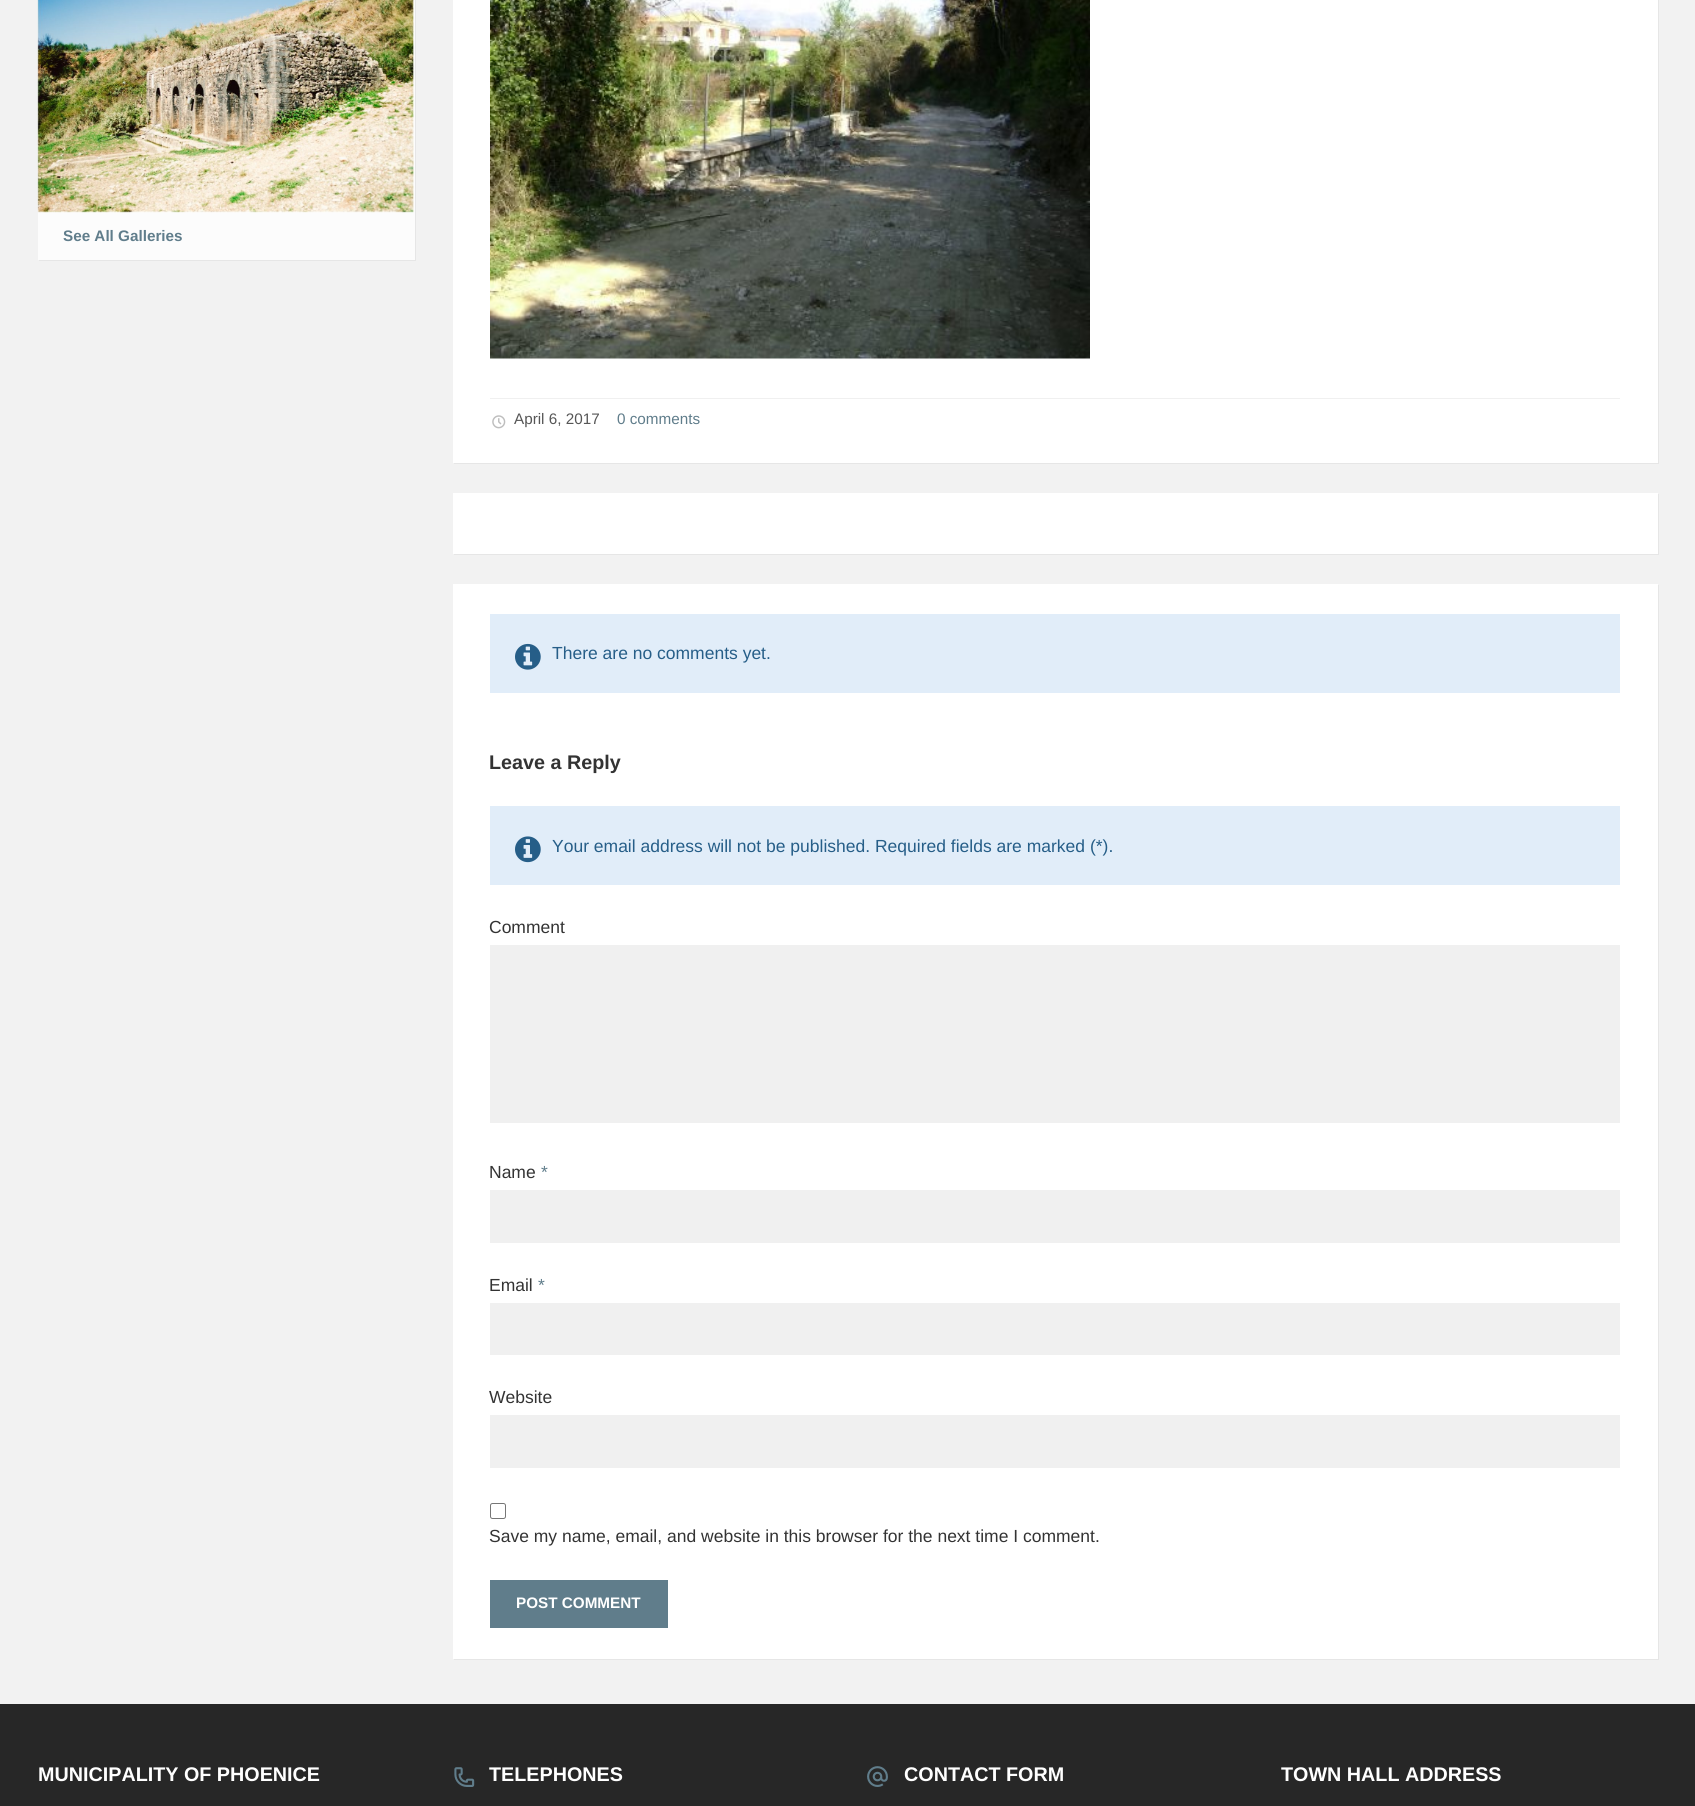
import math
import cairo


def use_color(cr, r, g, b):
  cr.set_source_rgb(r / 255, g / 255, b / 255)

def text(cr, x, y, s, family, size, color, bold=False, italic=False):
  cr.select_font_face(family, cairo.FONT_SLANT_ITALIC if italic else cairo.FONT_SLANT_NORMAL, cairo.FONT_WEIGHT_BOLD if bold else cairo.FONT_WEIGHT_NORMAL)
  cr.set_font_size(size)
  use_color(cr, *color)
  cr.move_to(x, y)
  cr.show_text(s)

def box(cr, x, y, w, h, *color):
  use_color(cr, *color)
  cr.rectangle(x, y, w, h)
  cr.fill()

def round_rect(cr, x, y, w, h, r):
  cr.new_sub_path()
  for i, (u, v) in enumerate([(x + w - r, y + h - r), (x + r, y + h - r), (x + r, y + r), (x + w - r, y + r)]):
    cr.arc(u, v, r, i * math.pi / 2, (i + 1) * math.pi / 2)
  cr.close_path()

def picture(cr, path, x, y, w, h):
  cr.save()
  cr.set_source_surface(cairo.ImageSurface.create_from_png(path), x, y)
  cr.rectangle(x, y, w, h)
  cr.fill()
  cr.restore()

def draw(cr):
  use_color(cr, 242, 242, 242)
  cr.paint()
  use_color(cr, 230, 230, 230)
  cr.new_path()
  cr.move_to(39, 260)
  cr.line_to(39, 261)
  cr.line_to(416, 261)
  cr.line_to(416, -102)
  cr.line_to(415, -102)
  cr.line_to(415, 260)
  cr.close_path()
  cr.fill()
  box(cr, 38, 0, 377, 260, 252, 252, 252)
  picture(cr, "img_01.png", 37, 0, 377, 213)
  use_color(cr, 230, 230, 230)
  cr.new_path()
  cr.move_to(454, 462)
  cr.line_to(454, 464)
  cr.line_to(1659, 464)
  cr.line_to(1659, -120)
  cr.line_to(1658, -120)
  cr.line_to(1658, 462)
  cr.close_path()
  cr.fill()
  box(cr, 453, 0, 1205, 463, 255, 255, 255)
  picture(cr, "img_02.png", 490, 0, 600, 359)
  box(cr, 490, 398, 1130, 1, 240, 240, 240)
  picture(cr, "img_03.png", 492, 415, 14, 14)
  use_color(cr, 230, 230, 230)
  cr.new_path()
  cr.move_to(454, 554)
  cr.line_to(454, 555)
  cr.line_to(1659, 555)
  cr.line_to(1659, 494)
  cr.line_to(1658, 494)
  cr.line_to(1658, 554)
  cr.close_path()
  cr.fill()
  box(cr, 453, 493, 1205, 61, 255, 255, 255)
  use_color(cr, 230, 230, 230)
  cr.new_path()
  cr.move_to(454, 1659)
  cr.line_to(454, 1660)
  cr.line_to(1659, 1660)
  cr.line_to(1659, 585)
  cr.line_to(1658, 585)
  cr.line_to(1658, 1659)
  cr.close_path()
  cr.fill()
  box(cr, 453, 584, 1205, 1075, 255, 255, 255)
  box(cr, 490, 614, 1130, 79, 225, 237, 249)
  picture(cr, "img_04.png", 515, 643, 26, 27)
  box(cr, 490, 806, 1130, 79, 225, 237, 249)
  picture(cr, "img_05.png", 515, 836, 26, 27)
  box(cr, 490, 945, 1130, 178, 240, 240, 240)
  box(cr, 490, 1190, 1130, 53, 240, 240, 240)
  box(cr, 490, 1303, 1130, 52, 240, 240, 240)
  box(cr, 490, 1415, 1130, 53, 240, 240, 240)
  round_rect(cr, 490.5, 1503.5, 15, 15, 2)
  use_color(cr, 118, 118, 118)
  cr.set_line_width(1)
  cr.stroke()
  box(cr, 490, 1580, 178, 48, 96, 125, 139)
  box(cr, 0, 1704, 1695, 102, 39, 39, 39)
  picture(cr, "img_06.png", 454, 1767, 21, 20)
  picture(cr, "img_07.png", 867, 1766, 21, 21)
  text(cr, 63, 241, "See All Galleries", "Liberation Sans", 15.25, (96, 125, 139), bold=True)
  text(cr, 514, 424, "April 6, 2017", "Liberation Sans", 15.25, (86, 86, 86))
  text(cr, 617, 424, "0 comments", "Liberation Sans", 15.25, (96, 125, 139))
  text(cr, 552, 659, "There are no comments yet.", "Liberation Sans", 17.5, (38, 94, 136))
  text(cr, 489, 769, "Leave a Reply", "Liberation Sans", 19.75, (51, 51, 51), bold=True)
  text(cr, 552, 852, "Your email address will not be published. Required fields are marked (*).", "Liberation Sans", 17.5, (38, 94, 136))
  text(cr, 489, 933, "Comment", "Liberation Sans", 17.5, (51, 51, 51))
  text(cr, 489, 1178, "Name", "Liberation Sans", 17.5, (51, 51, 51))
  text(cr, 541, 1178, "*", "Liberation Sans", 17.5, (96, 125, 139))
  text(cr, 489, 1291, "Email", "Liberation Sans", 17.5, (51, 51, 51))
  text(cr, 538, 1291, "*", "Liberation Sans", 17.5, (96, 125, 139))
  text(cr, 489, 1403, "Website", "Liberation Sans", 17.5, (51, 51, 51))
  text(cr, 489, 1542, "Save my name, email, and website in this browser for the next time I comment.", "Liberation Sans", 17.5, (51, 51, 51))
  text(cr, 516, 1608, "POST COMMENT", "Liberation Sans", 15.25, (255, 255, 255), bold=True)
  text(cr, 38, 1781, "MUNICIPALITY OF PHOENICE", "Liberation Sans", 19.75, (255, 255, 255), bold=True)
  text(cr, 489, 1781, "TELEPHONES", "Liberation Sans", 19.75, (255, 255, 255), bold=True)
  text(cr, 904, 1781, "CONTACT FORM", "Liberation Sans", 19.75, (255, 255, 255), bold=True)
  text(cr, 1281, 1781, "TOWN HALL ADDRESS", "Liberation Sans", 19.75, (255, 255, 255), bold=True)


surface = cairo.ImageSurface(cairo.FORMAT_RGB24, 1695, 1806)
cr = cairo.Context(surface)
options = cairo.FontOptions()
options.set_hint_metrics(cairo.HINT_METRICS_OFF)
options.set_hint_style(cairo.HINT_STYLE_NONE)
cr.set_font_options(options)
cr.set_miter_limit(4)
draw(cr)
surface.write_to_png("out.png")
